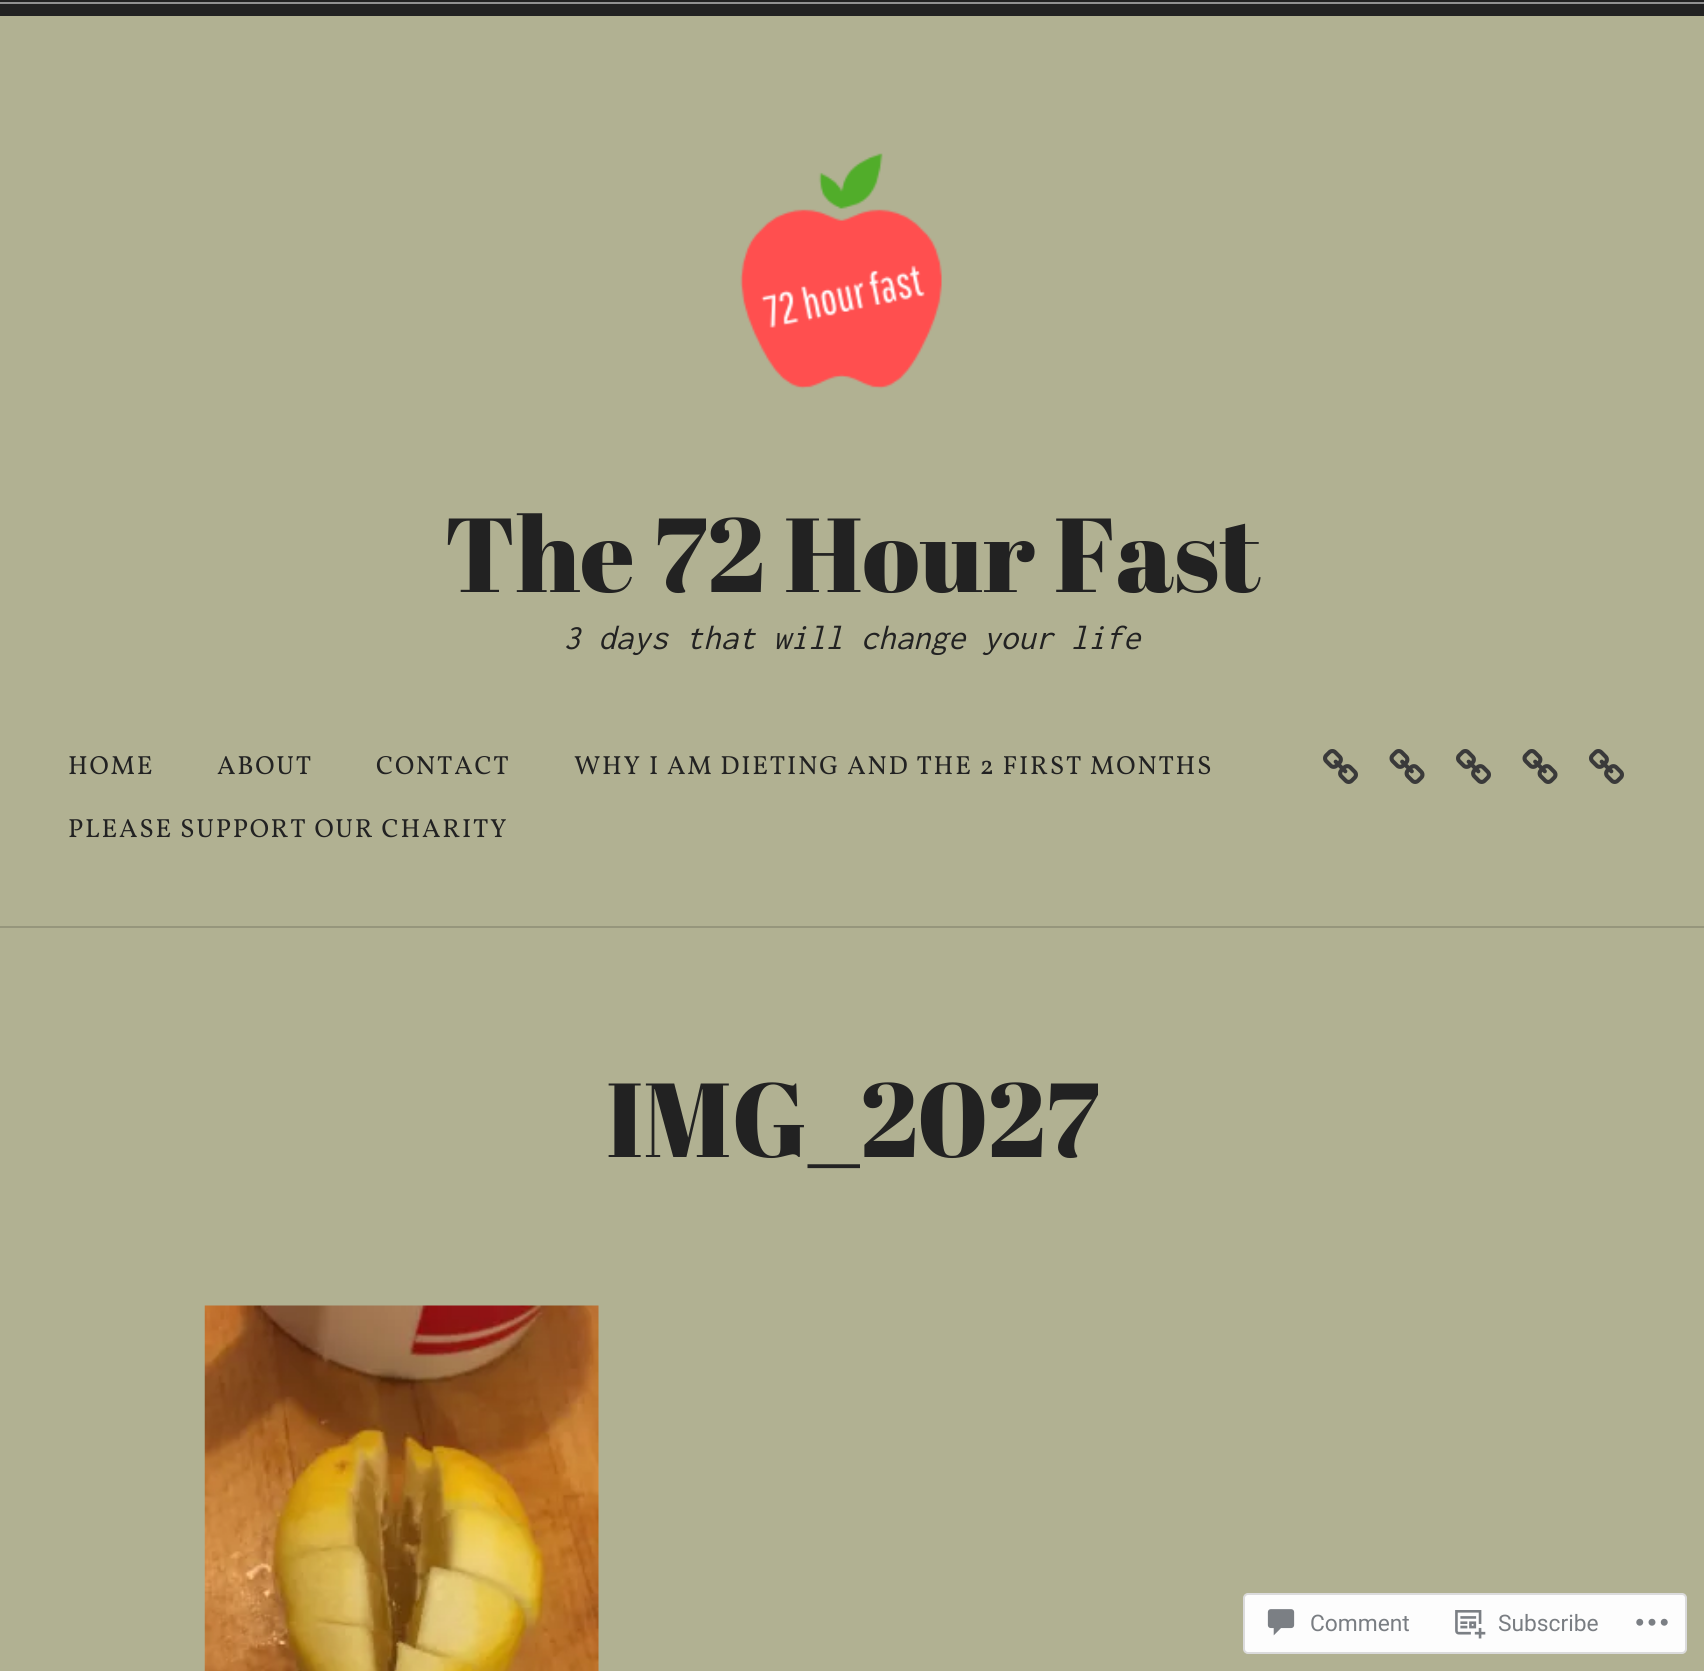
import math
import cairo


def use_color(cr, r, g, b):
  cr.set_source_rgb(r / 255, g / 255, b / 255)

def text(cr, x, y, s, family, size, color, bold=False, italic=False):
  cr.select_font_face(family, cairo.FONT_SLANT_ITALIC if italic else cairo.FONT_SLANT_NORMAL, cairo.FONT_WEIGHT_BOLD if bold else cairo.FONT_WEIGHT_NORMAL)
  cr.set_font_size(size)
  use_color(cr, *color)
  cr.move_to(x, y)
  cr.show_text(s)

def spaced_text(cr, x, y, s, letter, word):
  cr.move_to(x, y)
  for ch in s:
    cr.show_text(ch)
    cr.rel_move_to(letter + word * (ch == ' '), 0)

def box(cr, x, y, w, h, *color):
  use_color(cr, *color)
  cr.rectangle(x, y, w, h)
  cr.fill()

def round_rect(cr, x, y, w, h, r):
  cr.new_sub_path()
  for i, (u, v) in enumerate([(x + w - r, y + h - r), (x + r, y + h - r), (x + r, y + r), (x + w - r, y + r)]):
    cr.arc(u, v, r, i * math.pi / 2, (i + 1) * math.pi / 2)
  cr.close_path()

def picture(cr, path, x, y, w, h):
  cr.save()
  cr.set_source_surface(cairo.ImageSurface.create_from_png(path), x, y)
  cr.rectangle(x, y, w, h)
  cr.fill()
  cr.restore()

def draw(cr):
  use_color(cr, 177, 177, 146)
  cr.paint()
  box(cr, 0, 0, 1704, 16, 34, 34, 34)
  box(cr, 0, 926, 1704, 2, 150, 150, 124)
  box(cr, 0, 2, 1704, 2, 145, 145, 145)
  picture(cr, "img_01.png", 740, 153, 202, 236)
  picture(cr, "img_02.png", 1323, 749, 35, 35)
  picture(cr, "img_03.png", 1389, 749, 36, 35)
  picture(cr, "img_02.png", 1456, 749, 35, 35)
  picture(cr, "img_03.png", 1522, 749, 36, 35)
  picture(cr, "img_02.png", 1589, 749, 35, 35)
  picture(cr, "img_04.png", 204, 1305, 395, 366)
  use_color(cr, 253, 253, 253)
  round_rect(cr, 1244, 1594, 442, 59, 4)
  cr.fill_preserve()
  use_color(cr, 219, 219, 220)
  cr.stroke()
  picture(cr, "img_05.png", 1267, 1609, 28, 27)
  picture(cr, "img_06.png", 1455, 1610, 31, 29)
  picture(cr, "img_07.png", 1636, 1618, 32, 8)
  text(cr, 444, 592, "The 72 Hour Fast", "Abril Fatface", 105, (34, 34, 34))
  text(cr, 563, 649, "3 days that will change your life", "Inconsolata", 35, (34, 34, 34), italic=True)
  cr.select_font_face("Vollkorn")
  cr.set_font_size(26.25)
  spaced_text(cr, 68, 774, "HOME", 1.75, 0)
  spaced_text(cr, 217, 774, "ABOUT", 1.75, 0)
  spaced_text(cr, 376, 774, "CONTACT", 1.75, 0)
  spaced_text(cr, 574, 774, "WHY I AM DIETING AND THE 2 FIRST MONTHS", 1.75, 0)
  spaced_text(cr, 68, 837, "PLEASE SUPPORT OUR CHARITY", 1.75, 0)
  text(cr, 606, 1157, "IMG_2027", "Abril Fatface", 105, (34, 34, 34))
  text(cr, 1310, 1631, "Comment", "Roboto", 22.75, (121, 125, 130))
  text(cr, 1498, 1631, "Subscribe", "Roboto", 22.75, (121, 125, 130))


surface = cairo.ImageSurface(cairo.FORMAT_RGB24, 1704, 1671)
cr = cairo.Context(surface)
options = cairo.FontOptions()
options.set_hint_metrics(cairo.HINT_METRICS_OFF)
options.set_hint_style(cairo.HINT_STYLE_NONE)
cr.set_font_options(options)
cr.set_miter_limit(4)
draw(cr)
surface.write_to_png("out.png")
